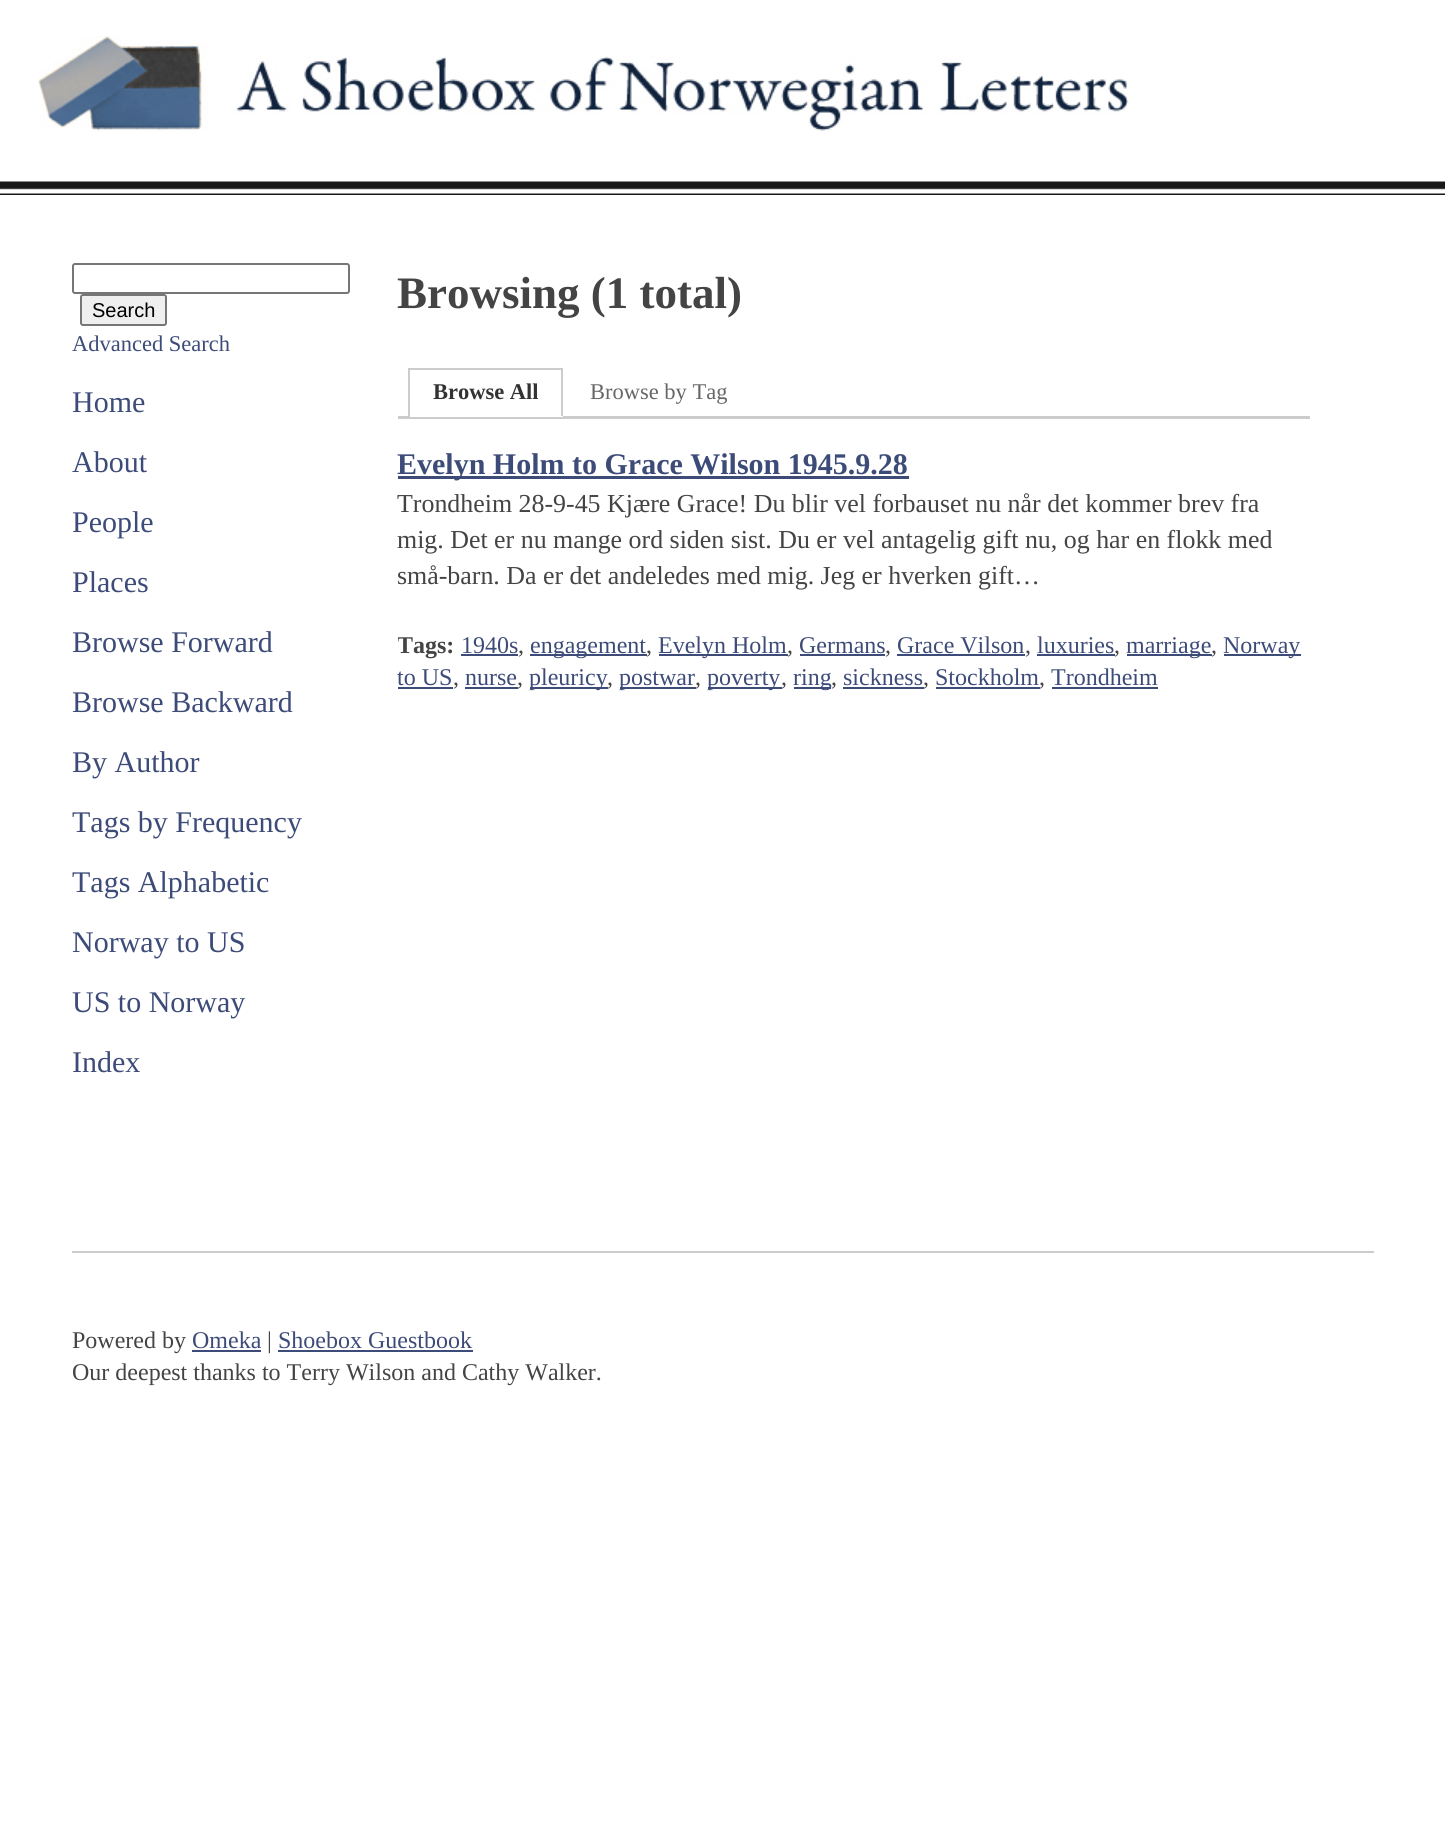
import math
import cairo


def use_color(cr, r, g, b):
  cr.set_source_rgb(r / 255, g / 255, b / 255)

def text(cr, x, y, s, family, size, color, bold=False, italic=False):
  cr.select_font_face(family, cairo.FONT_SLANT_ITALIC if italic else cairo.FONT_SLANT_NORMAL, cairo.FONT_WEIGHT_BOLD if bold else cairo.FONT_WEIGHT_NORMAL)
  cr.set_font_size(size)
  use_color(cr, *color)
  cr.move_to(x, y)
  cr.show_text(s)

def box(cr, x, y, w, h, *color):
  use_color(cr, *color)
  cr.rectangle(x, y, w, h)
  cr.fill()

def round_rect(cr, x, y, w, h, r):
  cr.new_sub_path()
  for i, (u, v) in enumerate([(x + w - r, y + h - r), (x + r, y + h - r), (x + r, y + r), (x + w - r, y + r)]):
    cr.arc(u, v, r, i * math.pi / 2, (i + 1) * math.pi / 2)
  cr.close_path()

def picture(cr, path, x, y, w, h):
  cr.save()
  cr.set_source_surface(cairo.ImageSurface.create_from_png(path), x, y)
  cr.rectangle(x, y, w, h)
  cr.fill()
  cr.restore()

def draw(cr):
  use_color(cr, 255, 255, 255)
  cr.paint()
  picture(cr, "img_01.png", 38, 36, 1091, 95)
  picture(cr, "img_02.png", 0, 181, 1445, 14)
  round_rect(cr, 73, 264, 276, 29, 2)
  use_color(cr, 118, 118, 118)
  cr.stroke()
  use_color(cr, 239, 239, 239)
  round_rect(cr, 81, 295, 85, 30, 2)
  cr.fill_preserve()
  use_color(cr, 118, 118, 118)
  cr.stroke()
  box(cr, 398, 416, 912, 3, 204, 204, 204)
  box(cr, 408, 368, 155, 2, 204, 204, 204)
  box(cr, 561, 368, 2, 49, 204, 204, 204)
  box(cr, 408, 416, 155, 1, 255, 255, 255)
  box(cr, 408, 368, 2, 49, 204, 204, 204)
  box(cr, 398, 476, 511, 3, 61, 75, 121)
  box(cr, 461, 654, 57, 2, 61, 75, 121)
  box(cr, 530, 654, 117, 2, 61, 75, 121)
  box(cr, 659, 654, 129, 2, 61, 75, 121)
  box(cr, 800, 654, 85, 2, 61, 75, 121)
  box(cr, 897, 654, 128, 2, 61, 75, 121)
  box(cr, 1037, 654, 78, 2, 61, 75, 121)
  box(cr, 1127, 654, 85, 2, 61, 75, 121)
  box(cr, 1224, 654, 77, 2, 61, 75, 121)
  box(cr, 398, 687, 55, 2, 61, 75, 121)
  box(cr, 465, 687, 53, 2, 61, 75, 121)
  box(cr, 530, 687, 78, 2, 61, 75, 121)
  box(cr, 620, 687, 76, 2, 61, 75, 121)
  box(cr, 708, 687, 74, 2, 61, 75, 121)
  box(cr, 794, 687, 37, 2, 61, 75, 121)
  box(cr, 843, 687, 81, 2, 61, 75, 121)
  box(cr, 936, 687, 104, 2, 61, 75, 121)
  box(cr, 1052, 687, 106, 2, 61, 75, 121)
  box(cr, 72, 1251, 1302, 2, 204, 204, 204)
  box(cr, 192, 1350, 69, 2, 61, 75, 121)
  box(cr, 278, 1350, 195, 2, 61, 75, 121)
  text(cr, 92, 317, "Search", "Liberation Sans", 20, (0, 0, 0))
  text(cr, 72, 351, "Advanced Search", "Liberation Serif", 22.5, (61, 75, 121))
  text(cr, 72, 412, "Home", "Liberation Serif", 30, (61, 75, 121))
  text(cr, 72, 472, "About", "Liberation Serif", 30, (61, 75, 121))
  text(cr, 72, 532, "People", "Liberation Serif", 30, (61, 75, 121))
  text(cr, 72, 592, "Places", "Liberation Serif", 30, (61, 75, 121))
  text(cr, 72, 652, "Browse Forward", "Liberation Serif", 30, (61, 75, 121))
  text(cr, 72, 712, "Browse Backward", "Liberation Serif", 30, (61, 75, 121))
  text(cr, 72, 772, "By Author", "Liberation Serif", 30, (61, 75, 121))
  text(cr, 72, 832, "Tags by Frequency", "Liberation Serif", 30, (61, 75, 121))
  text(cr, 72, 892, "Tags Alphabetic", "Liberation Serif", 30, (61, 75, 121))
  text(cr, 72, 952, "Norway to US", "Liberation Serif", 30, (61, 75, 121))
  text(cr, 72, 1012, "US to Norway", "Liberation Serif", 30, (61, 75, 121))
  text(cr, 72, 1072, "Index", "Liberation Serif", 30, (61, 75, 121))
  text(cr, 397, 308, "Browsing (1 total)", "Liberation Serif", 45, (68, 68, 68), bold=True)
  text(cr, 433, 399, "Browse All", "Liberation Serif", 22.5, (51, 51, 51), bold=True)
  text(cr, 590, 399, "Browse by Tag", "Liberation Serif", 22.5, (102, 102, 102))
  text(cr, 397, 474, "Evelyn Holm to Grace Wilson 1945.9.28", "Liberation Serif", 30, (61, 75, 121), bold=True)
  text(cr, 397, 512, "Trondheim 28-9-45 Kjære Grace! Du blir vel forbauset nu når det kommer brev fra", "Liberation Serif", 25.9, (68, 68, 68))
  text(cr, 397, 548, "mig. Det er nu mange ord siden sist. Du er vel antagelig gift nu, og har en flokk med", "Liberation Serif", 25.9, (68, 68, 68))
  text(cr, 397, 584, "små-barn. Da er det andeledes med mig. Jeg er hverken gift…", "Liberation Serif", 25.9, (68, 68, 68))
  cr.save()
  cr.rectangle(398, 419, 912, 306)
  cr.clip()
  text(cr, 397, 653, "Tags:", "Liberation Serif", 24, (68, 68, 68), bold=True)
  cr.restore()
  text(cr, 461, 653, "1940s", "Liberation Serif", 24, (61, 75, 121))
  text(cr, 518, 653, ",", "Liberation Serif", 24, (68, 68, 68))
  text(cr, 530, 653, "engagement", "Liberation Serif", 24, (61, 75, 121))
  text(cr, 646, 653, ",", "Liberation Serif", 24, (68, 68, 68))
  text(cr, 658, 653, "Evelyn Holm", "Liberation Serif", 24, (61, 75, 121))
  text(cr, 787, 653, ",", "Liberation Serif", 24, (68, 68, 68))
  text(cr, 799, 653, "Germans", "Liberation Serif", 24, (61, 75, 121))
  text(cr, 885, 653, ",", "Liberation Serif", 24, (68, 68, 68))
  text(cr, 897, 653, "Grace Vilson", "Liberation Serif", 24, (61, 75, 121))
  text(cr, 1025, 653, ",", "Liberation Serif", 24, (68, 68, 68))
  text(cr, 1037, 653, "luxuries", "Liberation Serif", 24, (61, 75, 121))
  text(cr, 1114, 653, ",", "Liberation Serif", 24, (68, 68, 68))
  text(cr, 1126, 653, "marriage", "Liberation Serif", 24, (61, 75, 121))
  text(cr, 1211, 653, ",", "Liberation Serif", 24, (68, 68, 68))
  text(cr, 1223, 653, "Norway", "Liberation Serif", 24, (61, 75, 121))
  text(cr, 397, 685, "to US", "Liberation Serif", 24, (61, 75, 121))
  text(cr, 453, 685, ",", "Liberation Serif", 24, (68, 68, 68))
  text(cr, 465, 685, "nurse", "Liberation Serif", 24, (61, 75, 121))
  text(cr, 517, 685, ",", "Liberation Serif", 24, (68, 68, 68))
  text(cr, 529, 685, "pleuricy", "Liberation Serif", 24, (61, 75, 121))
  text(cr, 607, 685, ",", "Liberation Serif", 24, (68, 68, 68))
  text(cr, 619, 685, "postwar", "Liberation Serif", 24, (61, 75, 121))
  text(cr, 695, 685, ",", "Liberation Serif", 24, (68, 68, 68))
  text(cr, 707, 685, "poverty", "Liberation Serif", 24, (61, 75, 121))
  text(cr, 781, 685, ",", "Liberation Serif", 24, (68, 68, 68))
  text(cr, 793, 685, "ring", "Liberation Serif", 24, (61, 75, 121))
  text(cr, 831, 685, ",", "Liberation Serif", 24, (68, 68, 68))
  text(cr, 843, 685, "sickness", "Liberation Serif", 24, (61, 75, 121))
  text(cr, 923, 685, ",", "Liberation Serif", 24, (68, 68, 68))
  text(cr, 935, 685, "Stockholm", "Liberation Serif", 24, (61, 75, 121))
  text(cr, 1039, 685, ",", "Liberation Serif", 24, (68, 68, 68))
  text(cr, 1051, 685, "Trondheim", "Liberation Serif", 24, (61, 75, 121))
  text(cr, 72, 1348, "Powered by", "Liberation Serif", 24, (68, 68, 68))
  text(cr, 192, 1348, "Omeka", "Liberation Serif", 24, (61, 75, 121))
  text(cr, 267, 1348, "|", "Liberation Serif", 24, (68, 68, 68))
  text(cr, 278, 1348, "Shoebox Guestbook", "Liberation Serif", 24, (61, 75, 121))
  text(cr, 72, 1380, "Our deepest thanks to Terry Wilson and Cathy Walker.", "Liberation Serif", 24, (68, 68, 68))


surface = cairo.ImageSurface(cairo.FORMAT_RGB24, 1445, 1832)
cr = cairo.Context(surface)
options = cairo.FontOptions()
options.set_hint_metrics(cairo.HINT_METRICS_OFF)
options.set_hint_style(cairo.HINT_STYLE_NONE)
cr.set_font_options(options)
cr.set_miter_limit(4)
draw(cr)
surface.write_to_png("out.png")
